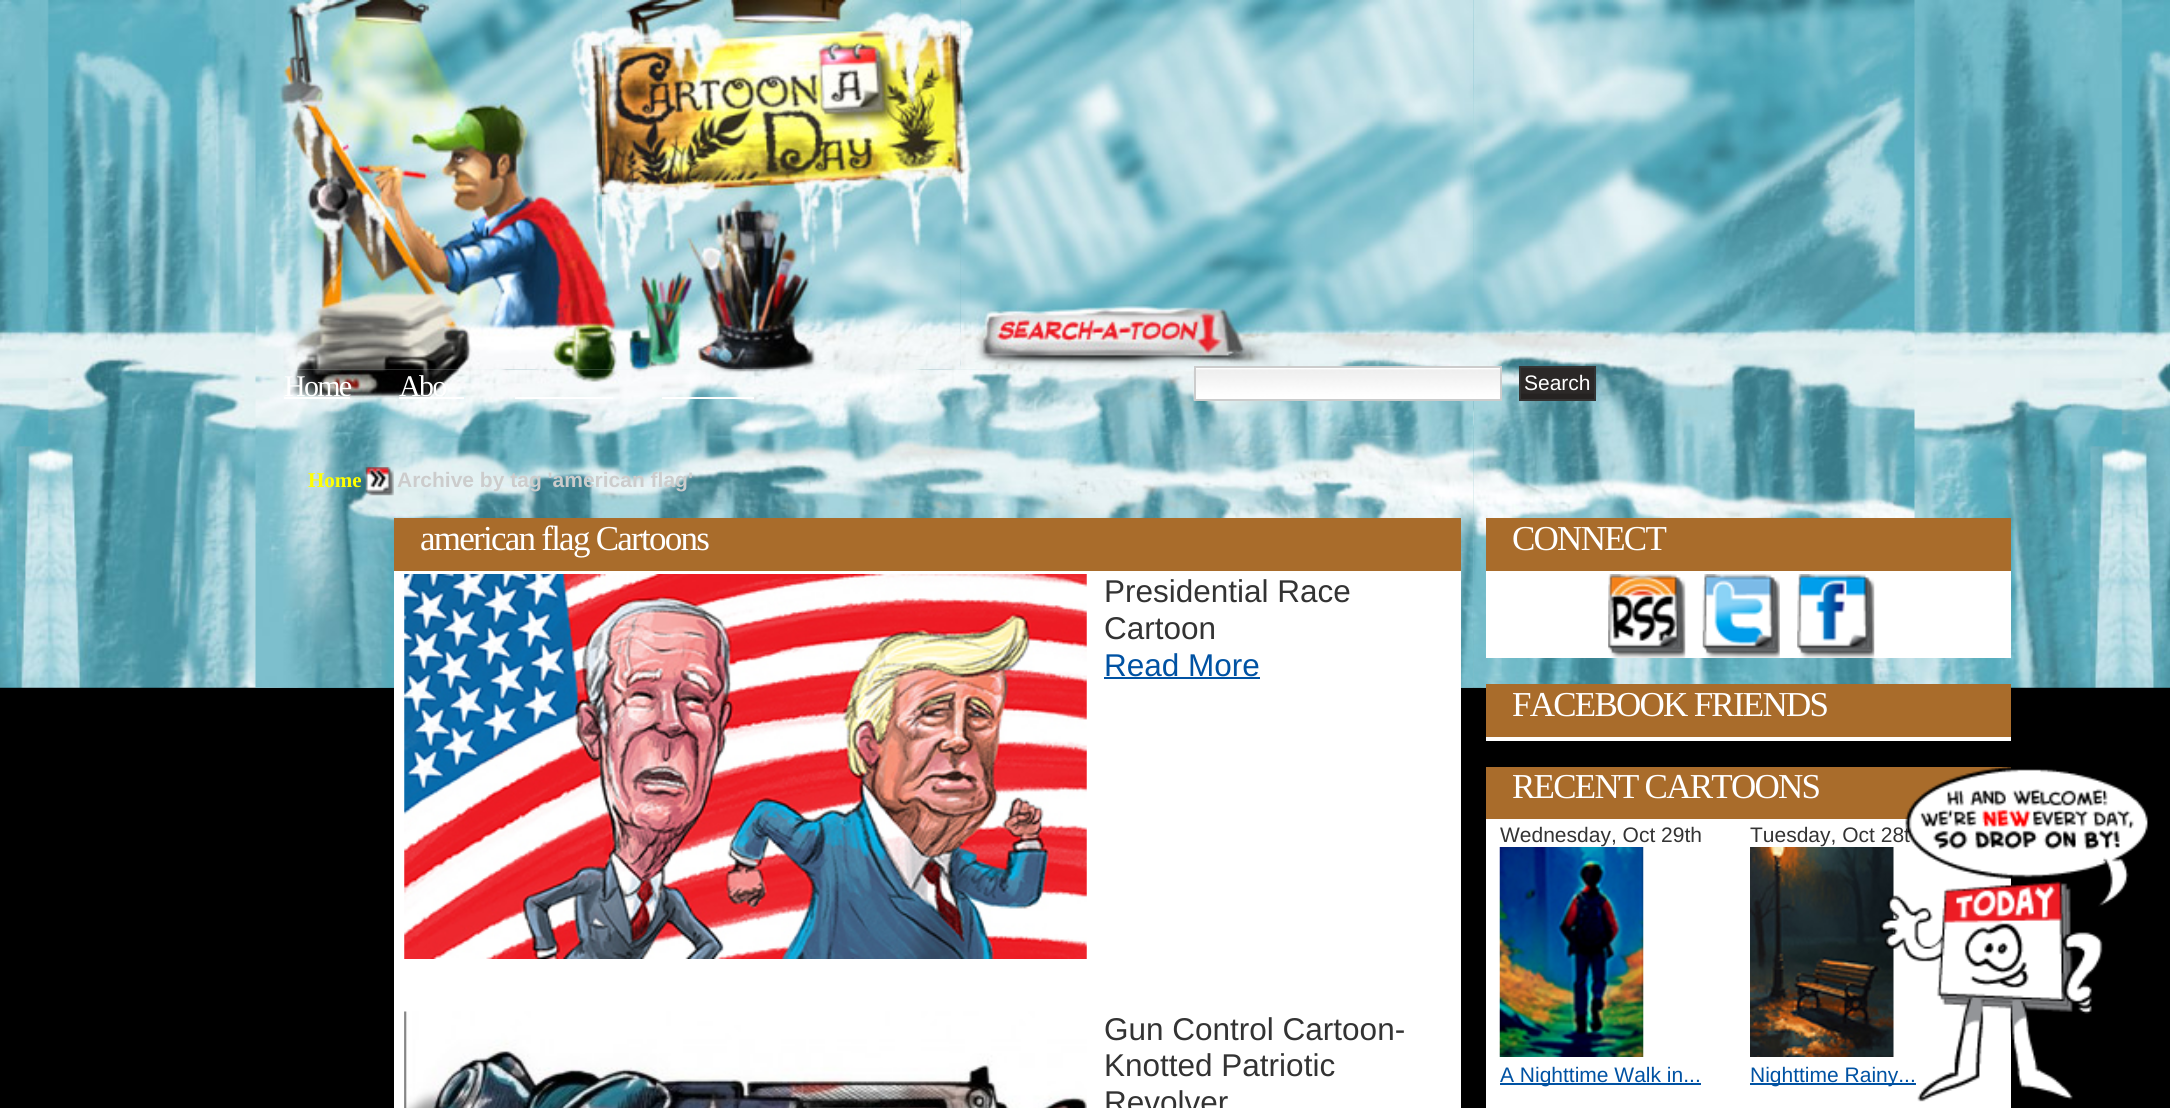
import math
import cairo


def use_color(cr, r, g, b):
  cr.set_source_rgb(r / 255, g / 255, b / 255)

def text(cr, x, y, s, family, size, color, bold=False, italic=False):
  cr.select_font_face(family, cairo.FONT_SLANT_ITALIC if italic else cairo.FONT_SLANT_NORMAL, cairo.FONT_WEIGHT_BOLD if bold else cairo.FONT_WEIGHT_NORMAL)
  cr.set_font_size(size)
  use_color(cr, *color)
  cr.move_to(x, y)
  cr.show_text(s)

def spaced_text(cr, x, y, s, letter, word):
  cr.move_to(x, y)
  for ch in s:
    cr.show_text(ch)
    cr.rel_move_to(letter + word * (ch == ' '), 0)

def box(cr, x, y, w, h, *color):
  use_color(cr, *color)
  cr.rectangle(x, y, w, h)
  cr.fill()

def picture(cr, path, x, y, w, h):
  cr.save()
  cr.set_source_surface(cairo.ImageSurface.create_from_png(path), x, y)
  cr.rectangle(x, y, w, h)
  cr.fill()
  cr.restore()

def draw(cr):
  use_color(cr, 0, 0, 0)
  cr.paint()
  picture(cr, "img_01.png", 0, 0, 2170, 688)
  picture(cr, "img_05.png", 255, 369, 1219, 319)
  picture(cr, "img_02.png", 255, 0, 347, 370)
  picture(cr, "img_03.png", 602, 0, 359, 370)
  picture(cr, "img_04.png", 960, 0, 514, 370)
  box(cr, 284, 397, 66, 2, 255, 255, 255)
  box(cr, 399, 397, 65, 2, 255, 255, 255)
  box(cr, 515, 397, 98, 2, 255, 255, 255)
  box(cr, 662, 397, 92, 2, 255, 255, 255)
  picture(cr, "img_08.png", 1473, 0, 442, 688)
  picture(cr, "img_06.png", 1193, 368, 307, 33)
  cr.rectangle(1195, 367, 306, 33)
  use_color(cr, 204, 204, 204)
  cr.stroke()
  picture(cr, "img_07.png", 1521, 368, 73, 31)
  cr.rectangle(1520, 367, 75, 33)
  use_color(cr, 51, 51, 51)
  cr.stroke()
  picture(cr, "img_09.png", 365, 467, 29, 29)
  box(cr, 394, 518, 1067, 53, 169, 108, 43)
  box(cr, 394, 571, 1067, 537, 255, 255, 255)
  picture(cr, "img_10.png", 404, 574, 683, 385)
  box(cr, 1104, 677, 156, 2, 0, 82, 163)
  picture(cr, "img_11.png", 404, 1011, 683, 97)
  box(cr, 1486, 518, 525, 53, 169, 108, 43)
  box(cr, 1486, 571, 525, 87, 255, 255, 255)
  picture(cr, "img_12.png", 1608, 574, 78, 84)
  picture(cr, "img_13.png", 1702, 574, 78, 84)
  picture(cr, "img_14.png", 1797, 574, 78, 84)
  box(cr, 1486, 684, 525, 53, 169, 108, 43)
  box(cr, 1486, 737, 525, 4, 255, 255, 255)
  box(cr, 1486, 767, 525, 52, 169, 108, 43)
  box(cr, 1486, 819, 525, 289, 255, 255, 255)
  picture(cr, "img_15.png", 1499, 847, 145, 210)
  box(cr, 1500, 1083, 201, 2, 0, 82, 163)
  picture(cr, "img_16.png", 1750, 847, 144, 210)
  box(cr, 1750, 1083, 166, 2, 0, 82, 163)
  cr.select_font_face("Liberation Serif")
  cr.set_font_size(30)
  use_color(cr, 255, 255, 255)
  spaced_text(cr, 284, 396, "Home", -1.75, 0)
  spaced_text(cr, 399, 396, "Abo", -1.75, 0)
  text(cr, 1524, 390, "Search", "Liberation Sans", 21, (255, 255, 255))
  text(cr, 308, 487, "Home", "Liberation Serif", 21, (255, 255, 0), bold=True)
  text(cr, 397, 487, "Archive by tag 'american flag'", "Liberation Sans", 21, (204, 204, 204), bold=True)
  cr.select_font_face("Liberation Serif")
  cr.set_font_size(35)
  use_color(cr, 255, 255, 255)
  spaced_text(cr, 420, 550, "american flag Cartoons", -1.75, 0)
  text(cr, 1104, 602, "Presidential Race", "Liberation Sans", 31.5, (51, 51, 51))
  text(cr, 1104, 639, "Cartoon", "Liberation Sans", 31.5, (51, 51, 51))
  text(cr, 1104, 676, "Read More", "Liberation Sans", 31.5, (0, 82, 163))
  text(cr, 1104, 1040, "Gun Control Cartoon-", "Liberation Sans", 31.5, (51, 51, 51))
  text(cr, 1104, 1076, "Knotted Patriotic", "Liberation Sans", 31.5, (51, 51, 51))
  text(cr, 1104, 1113, "Revolver", "Liberation Sans", 31.5, (51, 51, 51))
  cr.select_font_face("Liberation Serif")
  cr.set_font_size(35)
  use_color(cr, 255, 255, 255)
  spaced_text(cr, 1512, 550, "CONNECT", -1.75, 0)
  spaced_text(cr, 1512, 716, "FACEBOOK FRIENDS", -1.75, 0)
  spaced_text(cr, 1512, 798, "RECENT CARTOONS", -1.75, 0)
  text(cr, 1500, 842, "Wednesday, Oct 29th", "Liberation Sans", 21, (51, 51, 51))
  text(cr, 1500, 1082, "A Nighttime Walk in...", "Liberation Sans", 21, (0, 82, 163))
  text(cr, 1750, 842, "Tuesday, Oct 28t", "Liberation Sans", 21, (51, 51, 51))
  text(cr, 1750, 1082, "Nighttime Rainy...", "Liberation Sans", 21, (0, 82, 163))
  picture(cr, "img_17.png", 1879, 767, 269, 335)


surface = cairo.ImageSurface(cairo.FORMAT_RGB24, 2170, 1108)
cr = cairo.Context(surface)
options = cairo.FontOptions()
options.set_hint_metrics(cairo.HINT_METRICS_OFF)
options.set_hint_style(cairo.HINT_STYLE_NONE)
cr.set_font_options(options)
cr.set_miter_limit(4)
draw(cr)
surface.write_to_png("out.png")
